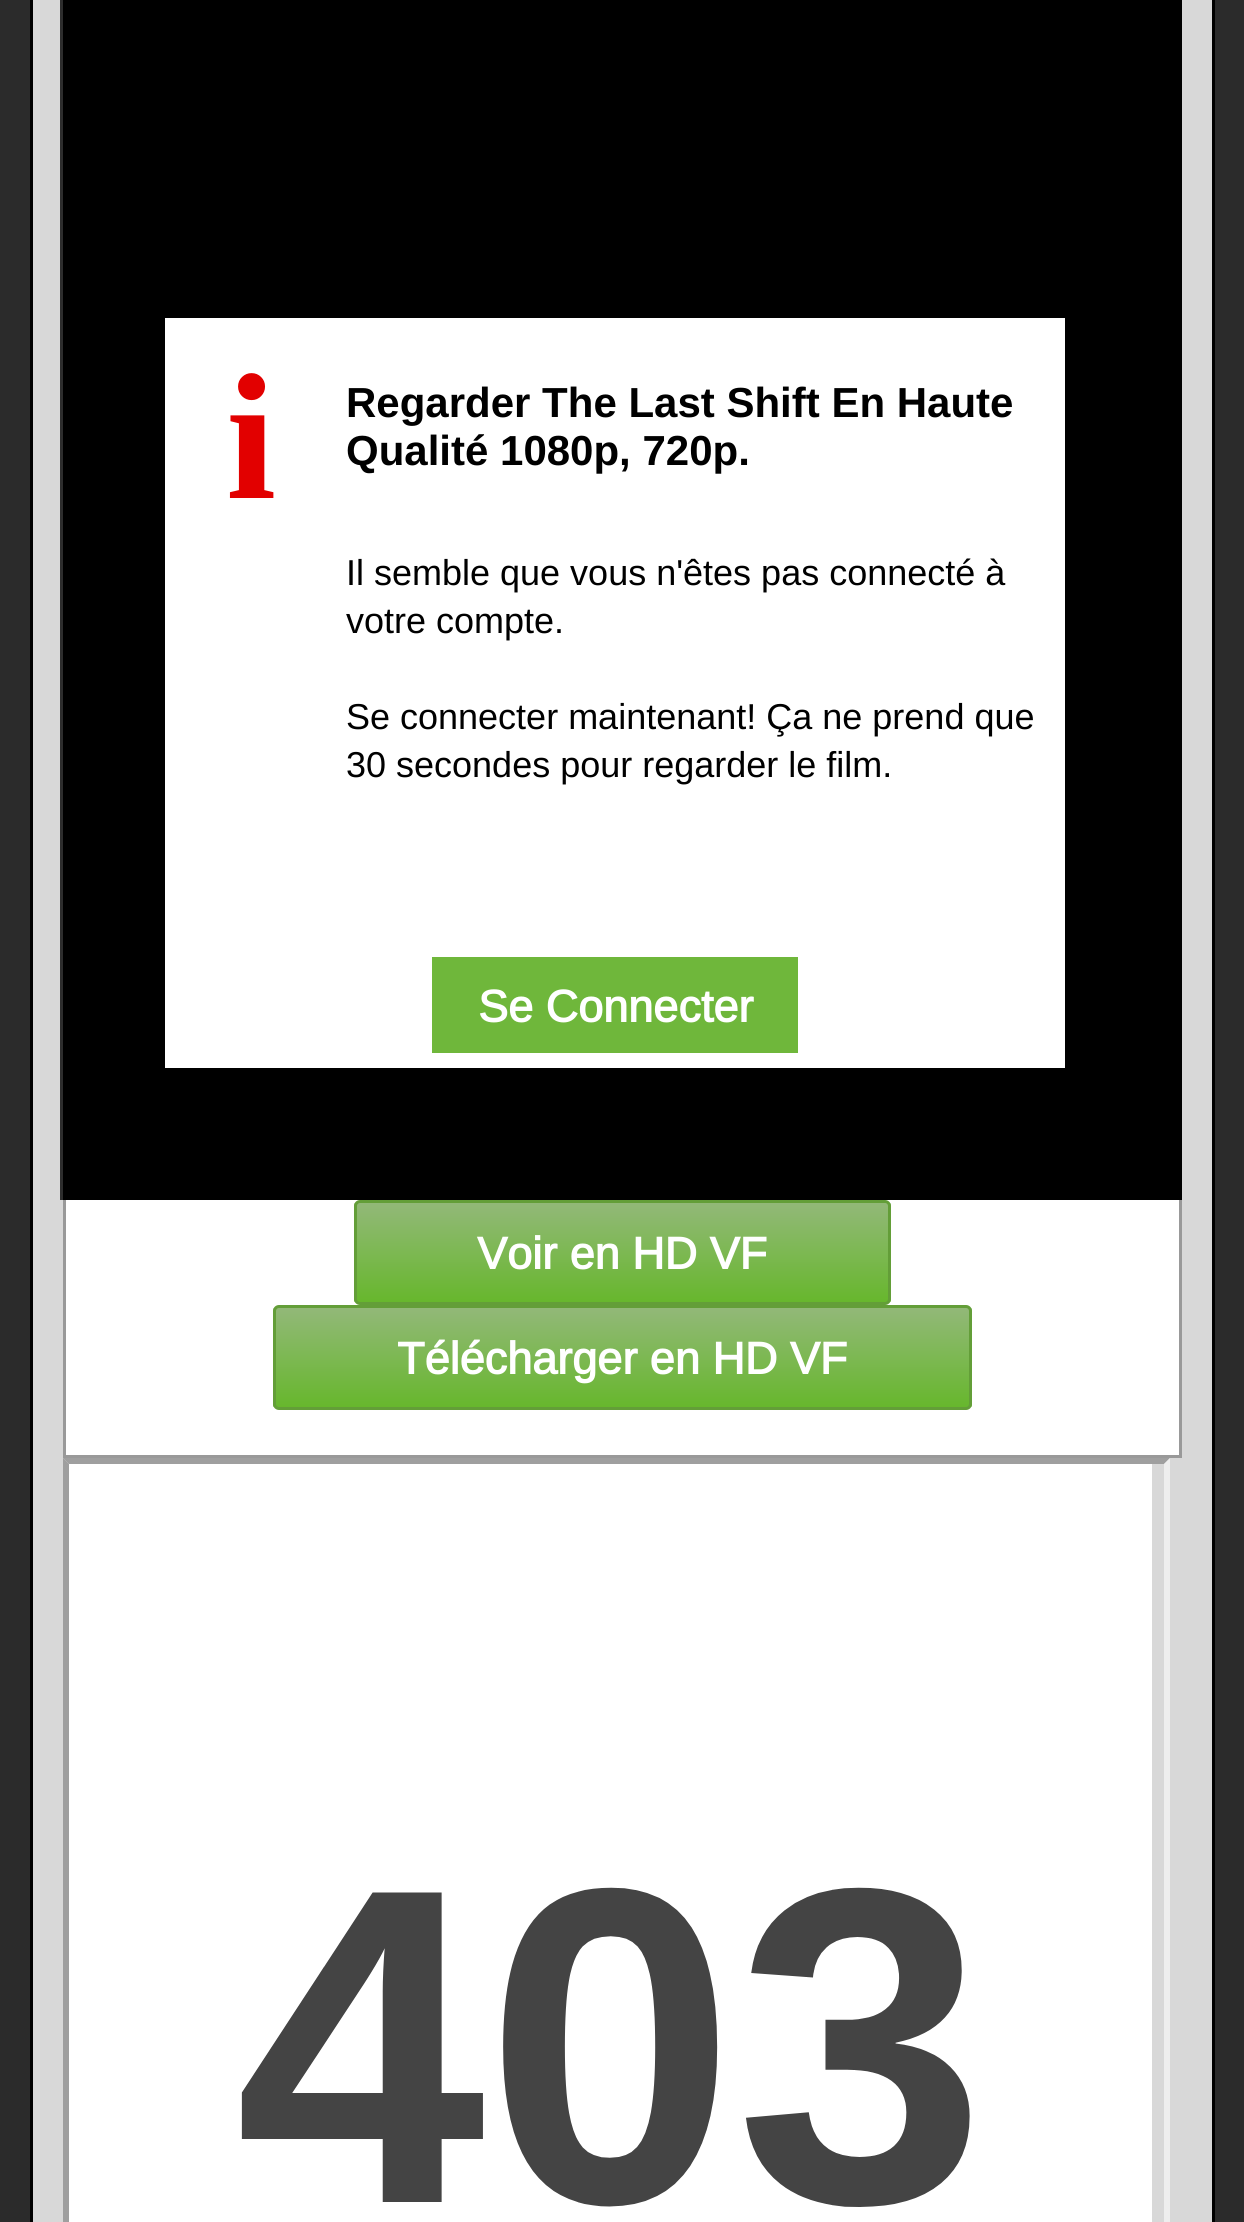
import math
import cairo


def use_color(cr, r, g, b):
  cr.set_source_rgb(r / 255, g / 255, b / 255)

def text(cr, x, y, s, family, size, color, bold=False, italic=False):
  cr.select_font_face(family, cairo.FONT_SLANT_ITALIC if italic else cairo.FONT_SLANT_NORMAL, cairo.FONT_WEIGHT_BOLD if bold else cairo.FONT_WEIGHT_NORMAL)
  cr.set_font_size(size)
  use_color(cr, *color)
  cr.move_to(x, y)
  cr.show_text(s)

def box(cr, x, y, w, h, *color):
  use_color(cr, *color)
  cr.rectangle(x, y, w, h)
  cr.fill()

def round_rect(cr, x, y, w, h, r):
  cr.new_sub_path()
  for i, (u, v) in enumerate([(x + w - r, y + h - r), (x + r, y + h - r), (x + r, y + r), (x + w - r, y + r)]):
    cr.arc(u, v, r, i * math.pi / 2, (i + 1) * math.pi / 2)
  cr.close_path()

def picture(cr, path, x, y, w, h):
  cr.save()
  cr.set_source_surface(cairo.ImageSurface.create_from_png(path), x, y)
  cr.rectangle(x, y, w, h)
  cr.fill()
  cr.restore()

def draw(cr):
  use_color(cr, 43, 43, 43)
  cr.paint()
  use_color(cr, 216, 216, 216)
  cr.rectangle(31.5, -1.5, 1182, 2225)
  cr.fill_preserve()
  use_color(cr, 0, 0, 0)
  cr.set_line_width(3)
  cr.stroke()
  cr.set_source_rgba(0, 0, 0, 0.79)
  cr.rectangle(60, 0, 3, 1200)
  cr.fill()
  box(cr, 66, 1200, 1113, 255, 255, 255, 255)
  cr.rectangle(64.5, 778.5, 1116, 678)
  use_color(cr, 153, 153, 153)
  cr.stroke()
  box(cr, 63, 0, 1119, 1200, 0, 0, 0)
  box(cr, 165, 318, 900, 750, 255, 255, 255)
  box(cr, 432, 957, 366, 96, 111, 183, 59)
  cr.save()
  round_rect(cr, 354, 1200, 537, 105, 6)
  cr.clip()
  gradient = cairo.LinearGradient(623, 1203, 623, 1302)
  gradient.add_color_stop_rgba(0, 0.573, 0.722, 0.471, 1)
  gradient.add_color_stop_rgba(1, 0.404, 0.718, 0.176, 1)
  cr.set_source(gradient)
  cr.rectangle(354, 1203, 537, 99)
  cr.fill()
  cr.restore()
  round_rect(cr, 355.5, 1201.5, 534, 102, 4.5)
  use_color(cr, 99, 158, 56)
  cr.stroke()
  cr.save()
  round_rect(cr, 273, 1305, 699, 105, 6)
  cr.clip()
  gradient = cairo.LinearGradient(623, 1308, 623, 1407)
  gradient.add_color_stop_rgba(0, 0.573, 0.722, 0.471, 1)
  gradient.add_color_stop_rgba(1, 0.404, 0.718, 0.176, 1)
  cr.set_source(gradient)
  cr.rectangle(273, 1308, 699, 99)
  cr.fill()
  cr.restore()
  round_rect(cr, 274.5, 1306.5, 696, 102, 4.5)
  cr.stroke()
  use_color(cr, 159, 159, 159)
  cr.new_path()
  cr.move_to(63, 1458)
  cr.line_to(1170, 1458)
  cr.line_to(1164, 1464)
  cr.line_to(69, 1464)
  cr.close_path()
  cr.fill()
  cr.new_path()
  cr.move_to(63, 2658)
  cr.line_to(63, 1458)
  cr.line_to(69, 1464)
  cr.line_to(69, 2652)
  cr.close_path()
  cr.fill()
  picture(cr, "img_01.png", 69, 1464, 1083, 758)
  use_color(cr, 238, 238, 238)
  cr.new_path()
  cr.move_to(1170, 1458)
  cr.line_to(1170, 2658)
  cr.line_to(1164, 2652)
  cr.line_to(1164, 1464)
  cr.close_path()
  cr.fill()
  text(cr, 226, 498, "i", "Liberation Serif", 180, (226, 0, 0), bold=True)
  text(cr, 346, 417, "Regarder The Last Shift En Haute", "Liberation Sans", 42, (0, 0, 0), bold=True)
  text(cr, 346, 465, "Qualité 1080p, 720p.", "Liberation Sans", 42, (0, 0, 0), bold=True)
  text(cr, 346, 585, "Il semble que vous n'êtes pas connecté à", "Liberation Sans", 36, (0, 0, 0))
  text(cr, 346, 633, "votre compte.", "Liberation Sans", 36, (0, 0, 0))
  text(cr, 346, 729, "Se connecter maintenant! Ça ne prend que", "Liberation Sans", 36, (0, 0, 0))
  text(cr, 346, 777, "30 secondes pour regarder le film.", "Liberation Sans", 36, (0, 0, 0))
  text(cr, 478, 1022, "Se Connecter", "Arimo", 45, (255, 255, 255), bold=True)
  text(cr, 477, 1269, "Voir en HD VF", "Arimo", 45, (255, 255, 255), bold=True)
  text(cr, 397, 1374, "Télécharger en HD VF", "Arimo", 45, (255, 255, 255), bold=True)


surface = cairo.ImageSurface(cairo.FORMAT_RGB24, 1244, 2222)
cr = cairo.Context(surface)
options = cairo.FontOptions()
options.set_hint_metrics(cairo.HINT_METRICS_OFF)
options.set_hint_style(cairo.HINT_STYLE_NONE)
cr.set_font_options(options)
cr.set_miter_limit(4)
draw(cr)
surface.write_to_png("out.png")
